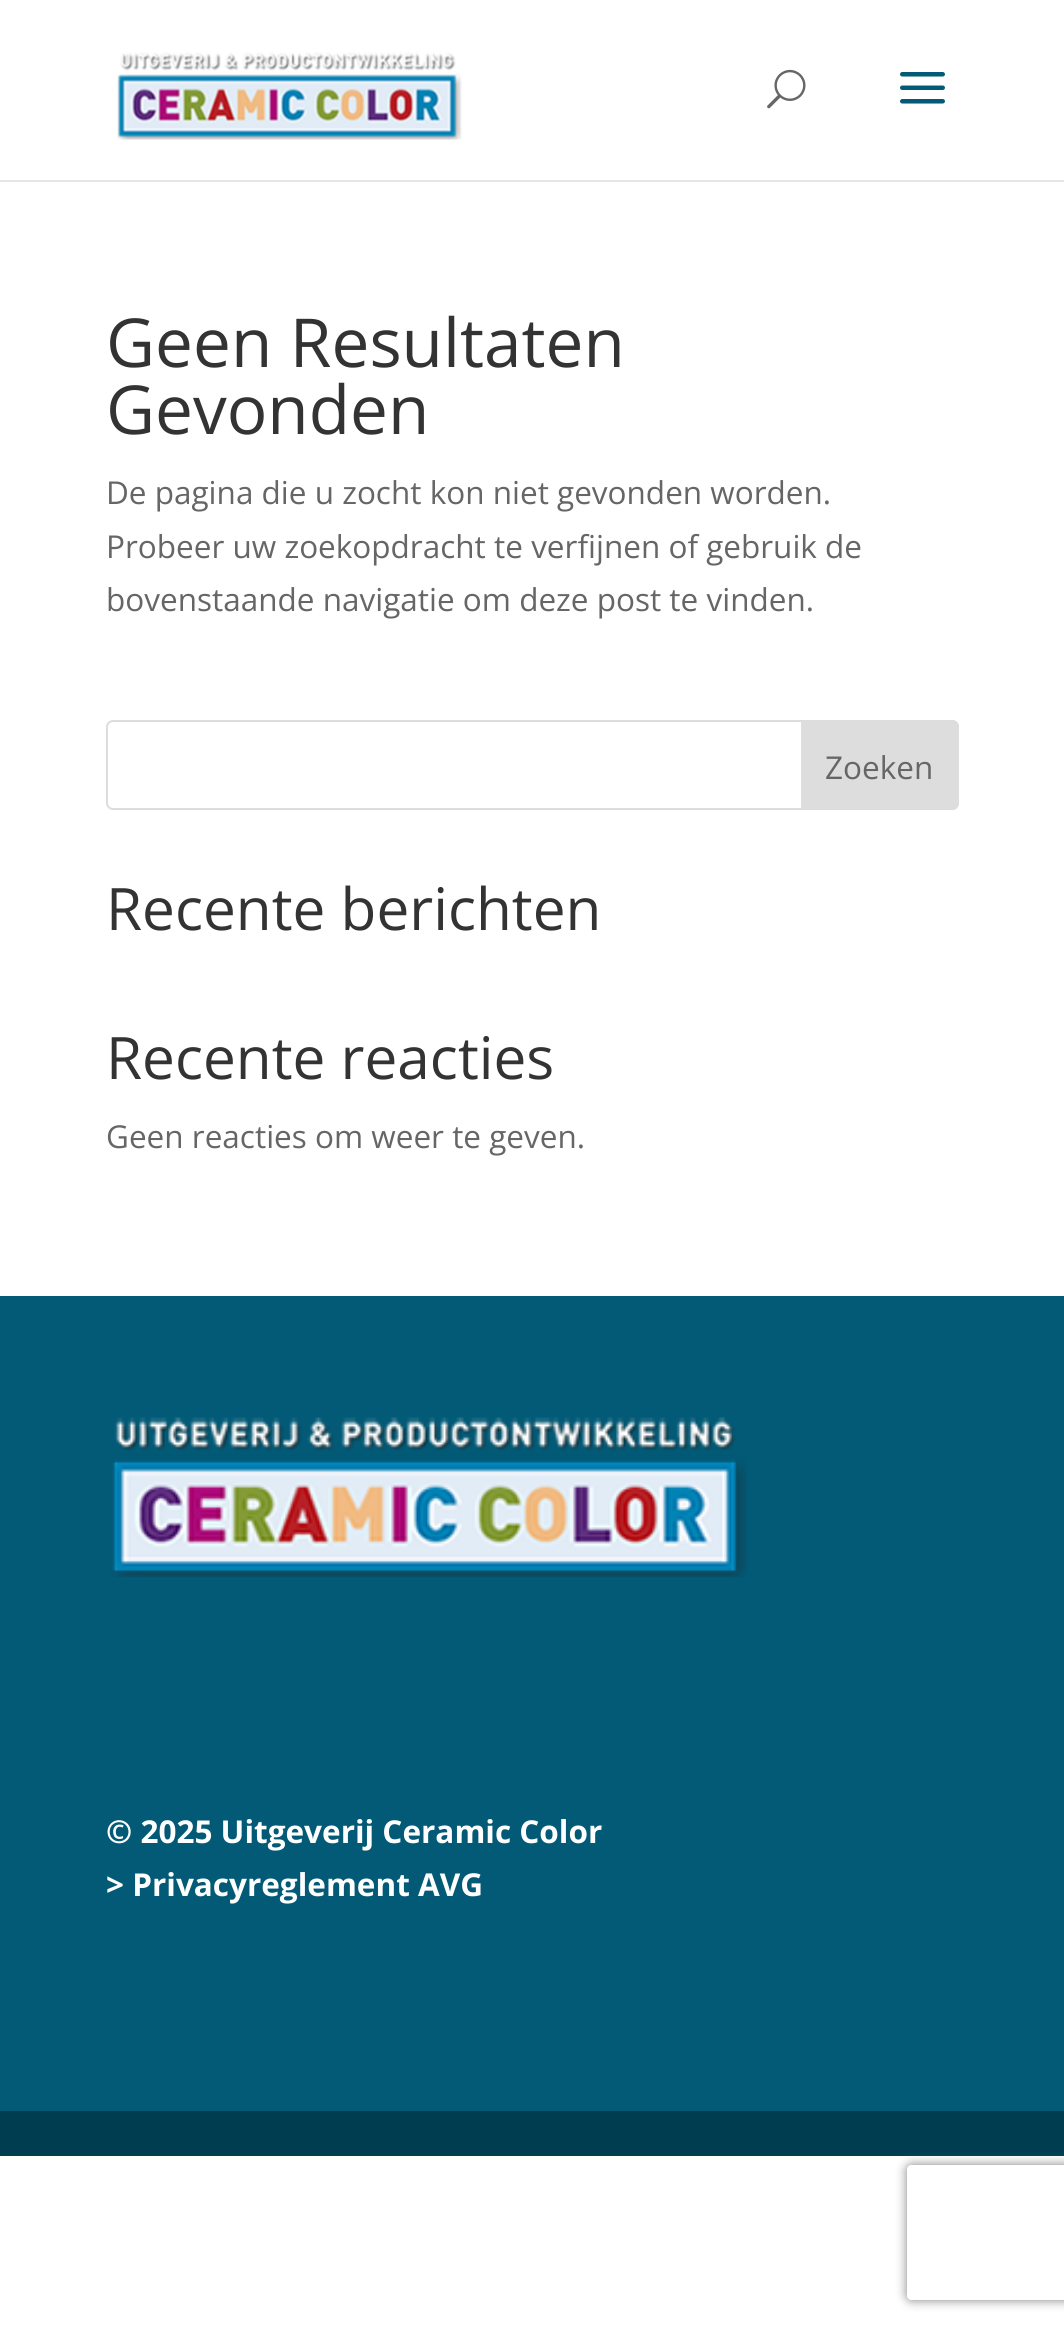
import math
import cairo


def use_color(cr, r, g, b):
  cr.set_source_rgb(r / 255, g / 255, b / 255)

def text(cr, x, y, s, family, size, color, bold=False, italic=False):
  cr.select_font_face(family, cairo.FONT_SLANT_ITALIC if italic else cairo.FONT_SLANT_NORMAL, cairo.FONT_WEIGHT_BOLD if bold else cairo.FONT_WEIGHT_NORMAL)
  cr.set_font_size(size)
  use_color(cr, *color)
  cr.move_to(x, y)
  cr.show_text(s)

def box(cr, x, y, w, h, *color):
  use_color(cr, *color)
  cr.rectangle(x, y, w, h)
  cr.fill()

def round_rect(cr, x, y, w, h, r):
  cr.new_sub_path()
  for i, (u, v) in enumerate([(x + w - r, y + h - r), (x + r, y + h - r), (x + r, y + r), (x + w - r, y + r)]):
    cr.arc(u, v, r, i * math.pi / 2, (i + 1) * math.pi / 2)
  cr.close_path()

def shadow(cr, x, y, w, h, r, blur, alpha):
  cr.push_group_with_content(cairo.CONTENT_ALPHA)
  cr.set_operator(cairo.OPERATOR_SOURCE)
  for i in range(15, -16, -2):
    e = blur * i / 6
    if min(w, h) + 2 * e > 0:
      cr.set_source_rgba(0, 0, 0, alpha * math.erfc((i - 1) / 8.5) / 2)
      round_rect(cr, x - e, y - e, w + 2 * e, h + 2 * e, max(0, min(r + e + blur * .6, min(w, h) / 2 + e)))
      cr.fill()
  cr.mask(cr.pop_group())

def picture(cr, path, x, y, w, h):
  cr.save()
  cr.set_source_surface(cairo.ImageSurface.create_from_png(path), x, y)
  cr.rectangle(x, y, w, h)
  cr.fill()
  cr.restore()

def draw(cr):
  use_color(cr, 255, 255, 255)
  cr.paint()
  box(cr, 0, 180, 1064, 2, 230, 230, 230)
  picture(cr, "img_01.png", 117, 52, 345, 88)
  picture(cr, "img_02.png", 767, 69, 39, 40)
  picture(cr, "img_03.png", 900, 72, 45, 32)
  round_rect(cr, 107, 721, 851, 88, 6)
  use_color(cr, 221, 221, 221)
  cr.stroke()
  cr.new_path()
  cr.move_to(802, 721)
  cr.line_to(952, 721)
  cr.curve_to(955.5, 721, 958, 723.5, 958, 727)
  cr.line_to(958, 803)
  cr.curve_to(958, 806.5, 955.5, 809, 952, 809)
  cr.line_to(802, 809)
  cr.close_path()
  cr.fill_preserve()
  cr.stroke()
  box(cr, 0, 1296, 1064, 815, 2, 90, 119)
  picture(cr, "img_04.png", 111, 1417, 636, 161)
  box(cr, 0, 2111, 1064, 45, 1, 61, 81)
  cr.save()
  cr.set_fill_rule(cairo.FILL_RULE_EVEN_ODD)
  cr.new_path()
  cr.move_to(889, 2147)
  cr.line_to(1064, 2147)
  cr.line_to(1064, 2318)
  cr.line_to(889, 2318)
  cr.close_path()
  cr.move_to(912, 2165)
  cr.line_to(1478, 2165)
  cr.curve_to(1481, 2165, 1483, 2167, 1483, 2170)
  cr.line_to(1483, 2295)
  cr.curve_to(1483, 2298, 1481, 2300, 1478, 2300)
  cr.line_to(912, 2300)
  cr.curve_to(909, 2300, 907, 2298, 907, 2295)
  cr.line_to(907, 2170)
  cr.curve_to(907, 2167, 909, 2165, 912, 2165)
  cr.close_path()
  cr.clip()
  use_color(cr, 128, 128, 128)
  shadow(cr, 907, 2165, 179, 135, 5, 5.5, 1)
  cr.restore()
  text(cr, 106, 367, "Geen Resultaten", "Open Sans", 67.5, (51, 51, 51))
  text(cr, 106, 434, "Gevonden", "Open Sans", 67.5, (51, 51, 51))
  text(cr, 106, 504, "De pagina die u zocht kon niet gevonden worden.", "Open Sans", 31.5, (102, 102, 102))
  text(cr, 106, 558, "Probeer uw zoekopdracht te verfijnen of gebruik de", "Open Sans", 31.5, (102, 102, 102))
  text(cr, 106, 611, "bovenstaande navigatie om deze post te vinden.", "Open Sans", 31.5, (102, 102, 102))
  text(cr, 825, 779, "Zoeken", "Open Sans", 31.5, (102, 102, 102))
  text(cr, 106, 930, "Recente berichten", "Open Sans", 58.5, (51, 51, 51))
  text(cr, 106, 1079, "Recente reacties", "Open Sans", 58.5, (51, 51, 51))
  text(cr, 106, 1148, "Geen reacties om weer te geven.", "Open Sans", 31.5, (102, 102, 102))
  text(cr, 106, 1843, "© 2025 Uitgeverij Ceramic Color", "Open Sans", 31.5, (255, 255, 255), bold=True)
  text(cr, 106, 1896, "> Privacyreglement AVG", "Open Sans", 31.5, (255, 255, 255), bold=True)


surface = cairo.ImageSurface(cairo.FORMAT_RGB24, 1064, 2330)
cr = cairo.Context(surface)
options = cairo.FontOptions()
options.set_hint_metrics(cairo.HINT_METRICS_OFF)
options.set_hint_style(cairo.HINT_STYLE_NONE)
cr.set_font_options(options)
cr.set_miter_limit(4)
draw(cr)
surface.write_to_png("out.png")
